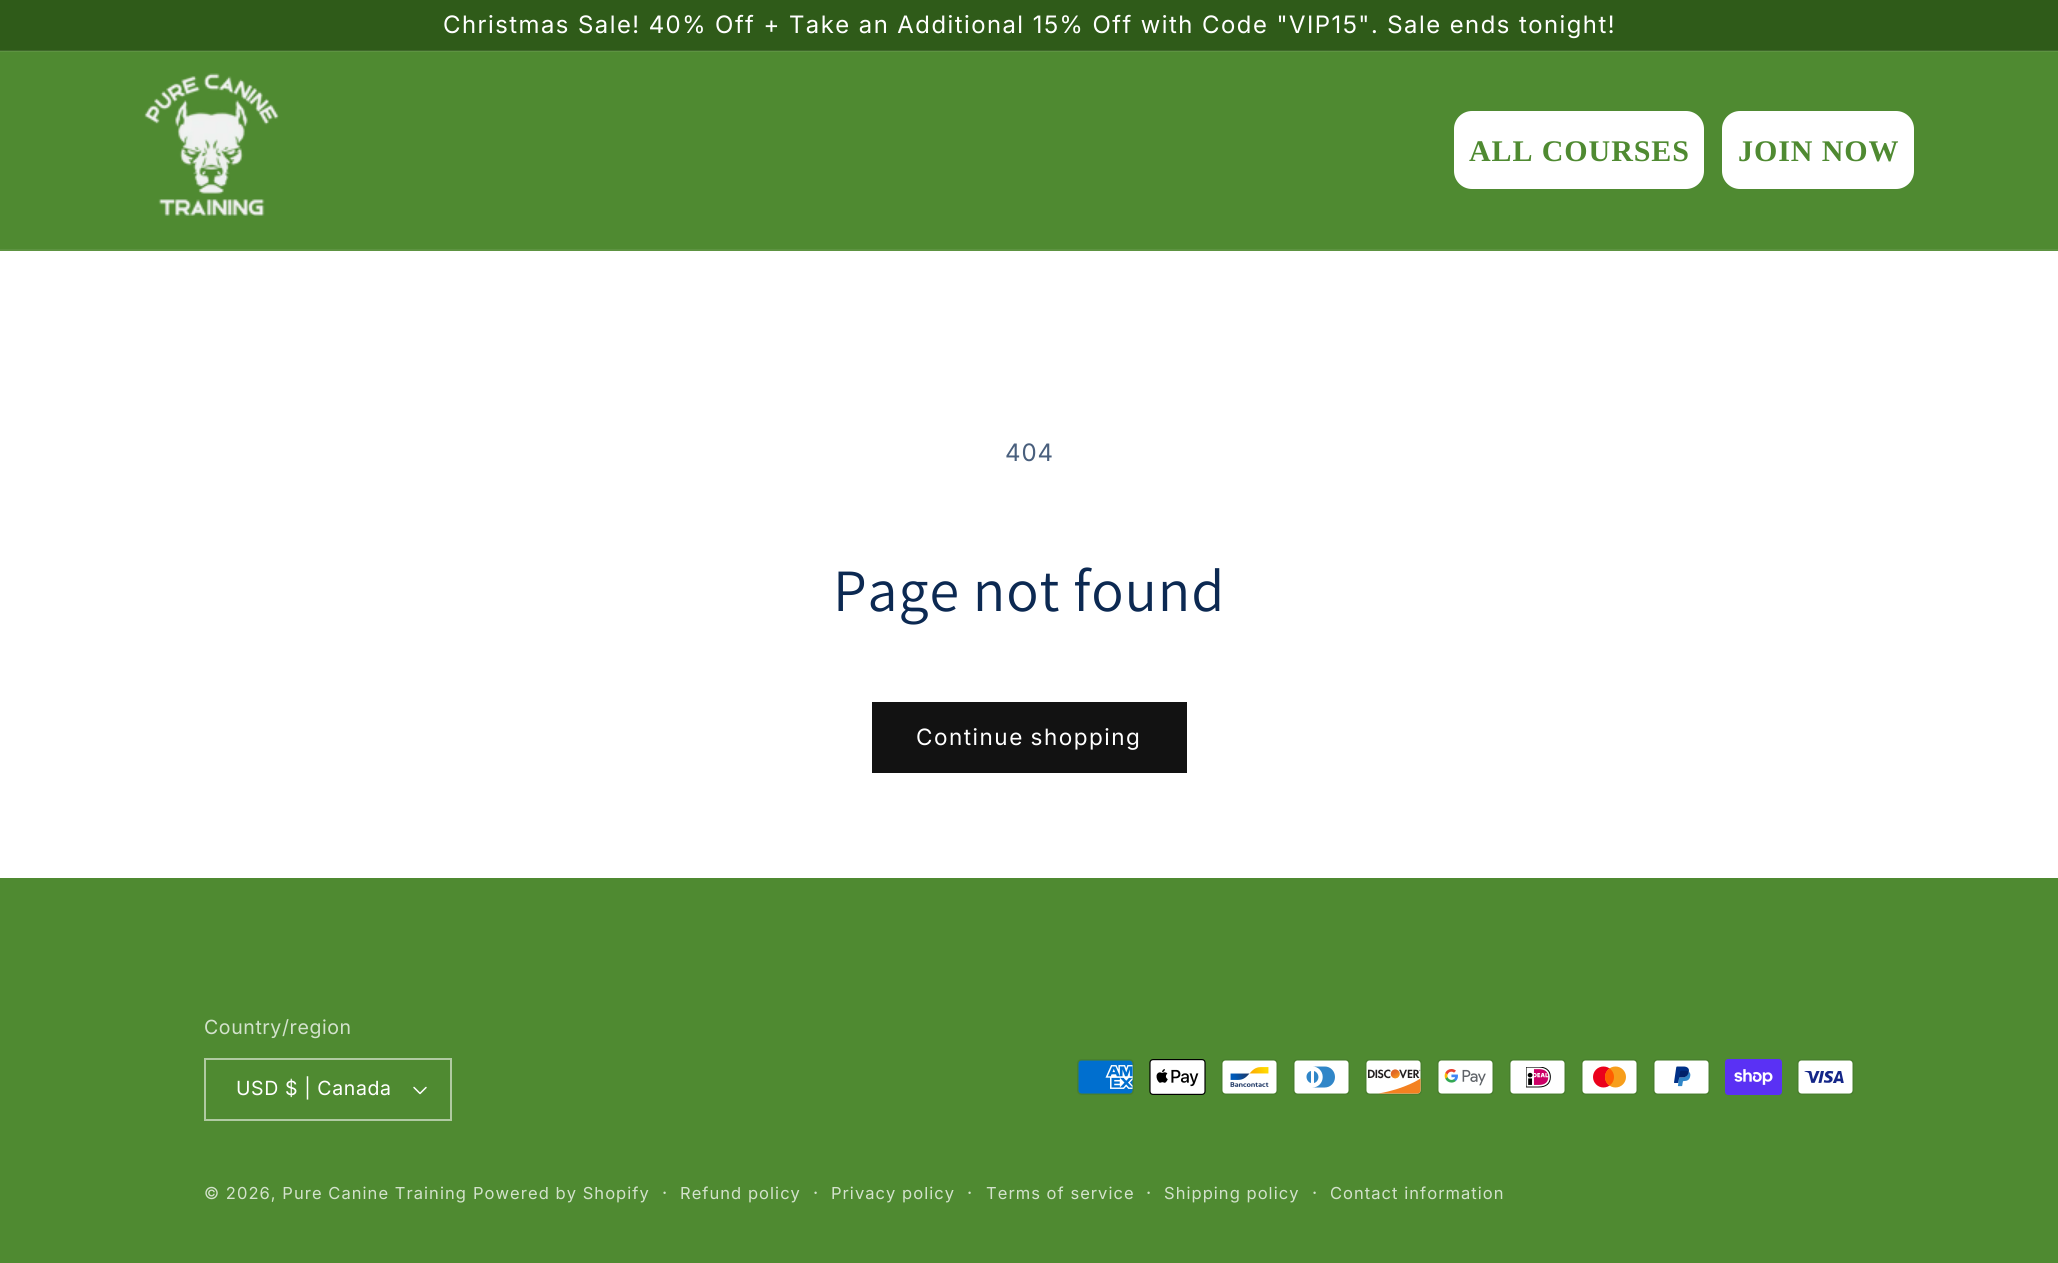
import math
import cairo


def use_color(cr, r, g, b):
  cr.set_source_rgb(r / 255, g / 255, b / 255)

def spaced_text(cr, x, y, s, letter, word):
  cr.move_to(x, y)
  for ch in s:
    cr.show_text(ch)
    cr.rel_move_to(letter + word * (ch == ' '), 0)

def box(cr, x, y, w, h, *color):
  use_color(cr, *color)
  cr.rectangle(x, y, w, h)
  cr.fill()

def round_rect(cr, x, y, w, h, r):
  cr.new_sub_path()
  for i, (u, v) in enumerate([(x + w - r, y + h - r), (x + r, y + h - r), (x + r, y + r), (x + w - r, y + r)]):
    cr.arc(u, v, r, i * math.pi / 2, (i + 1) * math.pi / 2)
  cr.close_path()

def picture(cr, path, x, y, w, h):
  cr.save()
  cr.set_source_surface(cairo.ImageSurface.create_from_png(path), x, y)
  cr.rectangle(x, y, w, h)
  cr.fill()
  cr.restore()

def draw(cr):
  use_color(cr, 255, 255, 255)
  cr.paint()
  box(cr, 0, 0, 2058, 50, 47, 91, 25)
  box(cr, 0, 50, 2058, 1, 64, 104, 43)
  box(cr, 0, 52, 2058, 197, 79, 138, 49)
  box(cr, 0, 51, 2058, 1, 93, 147, 65)
  box(cr, 0, 249, 2058, 2, 93, 147, 65)
  picture(cr, "img_01.png", 144, 73, 135, 143)
  use_color(cr, 255, 255, 255)
  round_rect(cr, 1454, 111, 250, 78, 18)
  cr.fill()
  round_rect(cr, 1722, 111, 192, 78, 18)
  cr.fill()
  box(cr, 872, 702, 315, 71, 18, 18, 18)
  box(cr, 0, 878, 2058, 385, 79, 138, 49)
  picture(cr, "img_02.png", 413, 1086, 14, 9)
  cr.rectangle(205, 1059, 246, 61)
  use_color(cr, 176, 202, 162)
  cr.stroke()
  picture(cr, "img_03.png", 1077, 1059, 57, 36)
  picture(cr, "img_04.png", 1149, 1059, 57, 36)
  picture(cr, "img_05.png", 1221, 1059, 57, 36)
  picture(cr, "img_06.png", 1293, 1059, 57, 36)
  picture(cr, "img_07.png", 1365, 1059, 57, 36)
  picture(cr, "img_08.png", 1437, 1059, 57, 36)
  picture(cr, "img_09.png", 1509, 1059, 57, 36)
  picture(cr, "img_10.png", 1581, 1059, 57, 36)
  picture(cr, "img_11.png", 1653, 1059, 57, 36)
  picture(cr, "img_12.png", 1725, 1059, 57, 36)
  picture(cr, "img_13.png", 1797, 1059, 57, 36)
  cr.select_font_face("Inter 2")
  cr.set_font_size(24)
  use_color(cr, 255, 255, 255)
  spaced_text(cr, 443, 33, "Christmas Sale! 40% Off + Take an Additional 15% Off with Code \"VIP15\". Sale ends tonight!", 1.5, 0)
  cr.select_font_face("Liberation Serif", cairo.FONT_SLANT_NORMAL, cairo.FONT_WEIGHT_BOLD)
  cr.set_font_size(30)
  use_color(cr, 79, 138, 49)
  spaced_text(cr, 1469, 161, "ALL COURSES", 0.9, 0)
  spaced_text(cr, 1738, 161, "JOIN NOW", 0.9, 0)
  cr.select_font_face("Inter")
  cr.set_font_size(24)
  use_color(cr, 73, 95, 125)
  spaced_text(cr, 1005, 461, "404", 0.9, 0)
  cr.select_font_face("Assistant")
  cr.set_font_size(60)
  use_color(cr, 12, 41, 82)
  spaced_text(cr, 833, 611, "Page not found", 0.9, 0)
  cr.select_font_face("Inter")
  cr.set_font_size(22.5)
  use_color(cr, 255, 255, 255)
  spaced_text(cr, 916, 745, "Continue shopping", 1.5, -1)
  cr.set_font_size(19.5)
  use_color(cr, 211, 226, 204)
  spaced_text(cr, 204, 1034, "Country/region", 0.6, 0)
  use_color(cr, 255, 255, 255)
  spaced_text(cr, 236, 1095, "USD $ | Canada", 0.6, 0)
  cr.set_font_size(16.5)
  use_color(cr, 211, 226, 204)
  spaced_text(cr, 204, 1199, "© 2026, Pure Canine Training", 1.05, 0)
  spaced_text(cr, 473, 1199, "Powered by Shopify", 1.05, 0)
  cr.set_font_size(18)
  spaced_text(cr, 662, 1199, "·", 1.05, 0)
  cr.set_font_size(16.5)
  spaced_text(cr, 680, 1199, "Refund policy", 1.05, 0)
  cr.set_font_size(18)
  spaced_text(cr, 813, 1199, "·", 1.05, 0)
  cr.set_font_size(16.5)
  spaced_text(cr, 831, 1199, "Privacy policy", 1.05, 0)
  cr.set_font_size(18)
  spaced_text(cr, 967, 1199, "·", 1.05, 0)
  cr.set_font_size(16.5)
  spaced_text(cr, 986, 1199, "Terms of service", 1.05, 0)
  cr.set_font_size(18)
  spaced_text(cr, 1146, 1199, "·", 1.05, 0)
  cr.set_font_size(16.5)
  spaced_text(cr, 1164, 1199, "Shipping policy", 1.05, 0)
  cr.set_font_size(18)
  spaced_text(cr, 1312, 1199, "·", 1.05, 0)
  cr.set_font_size(16.5)
  spaced_text(cr, 1330, 1199, "Contact information", 1.05, 0)


surface = cairo.ImageSurface(cairo.FORMAT_RGB24, 2058, 1263)
cr = cairo.Context(surface)
options = cairo.FontOptions()
options.set_hint_metrics(cairo.HINT_METRICS_OFF)
options.set_hint_style(cairo.HINT_STYLE_NONE)
cr.set_font_options(options)
cr.set_miter_limit(4)
draw(cr)
surface.write_to_png("out.png")
